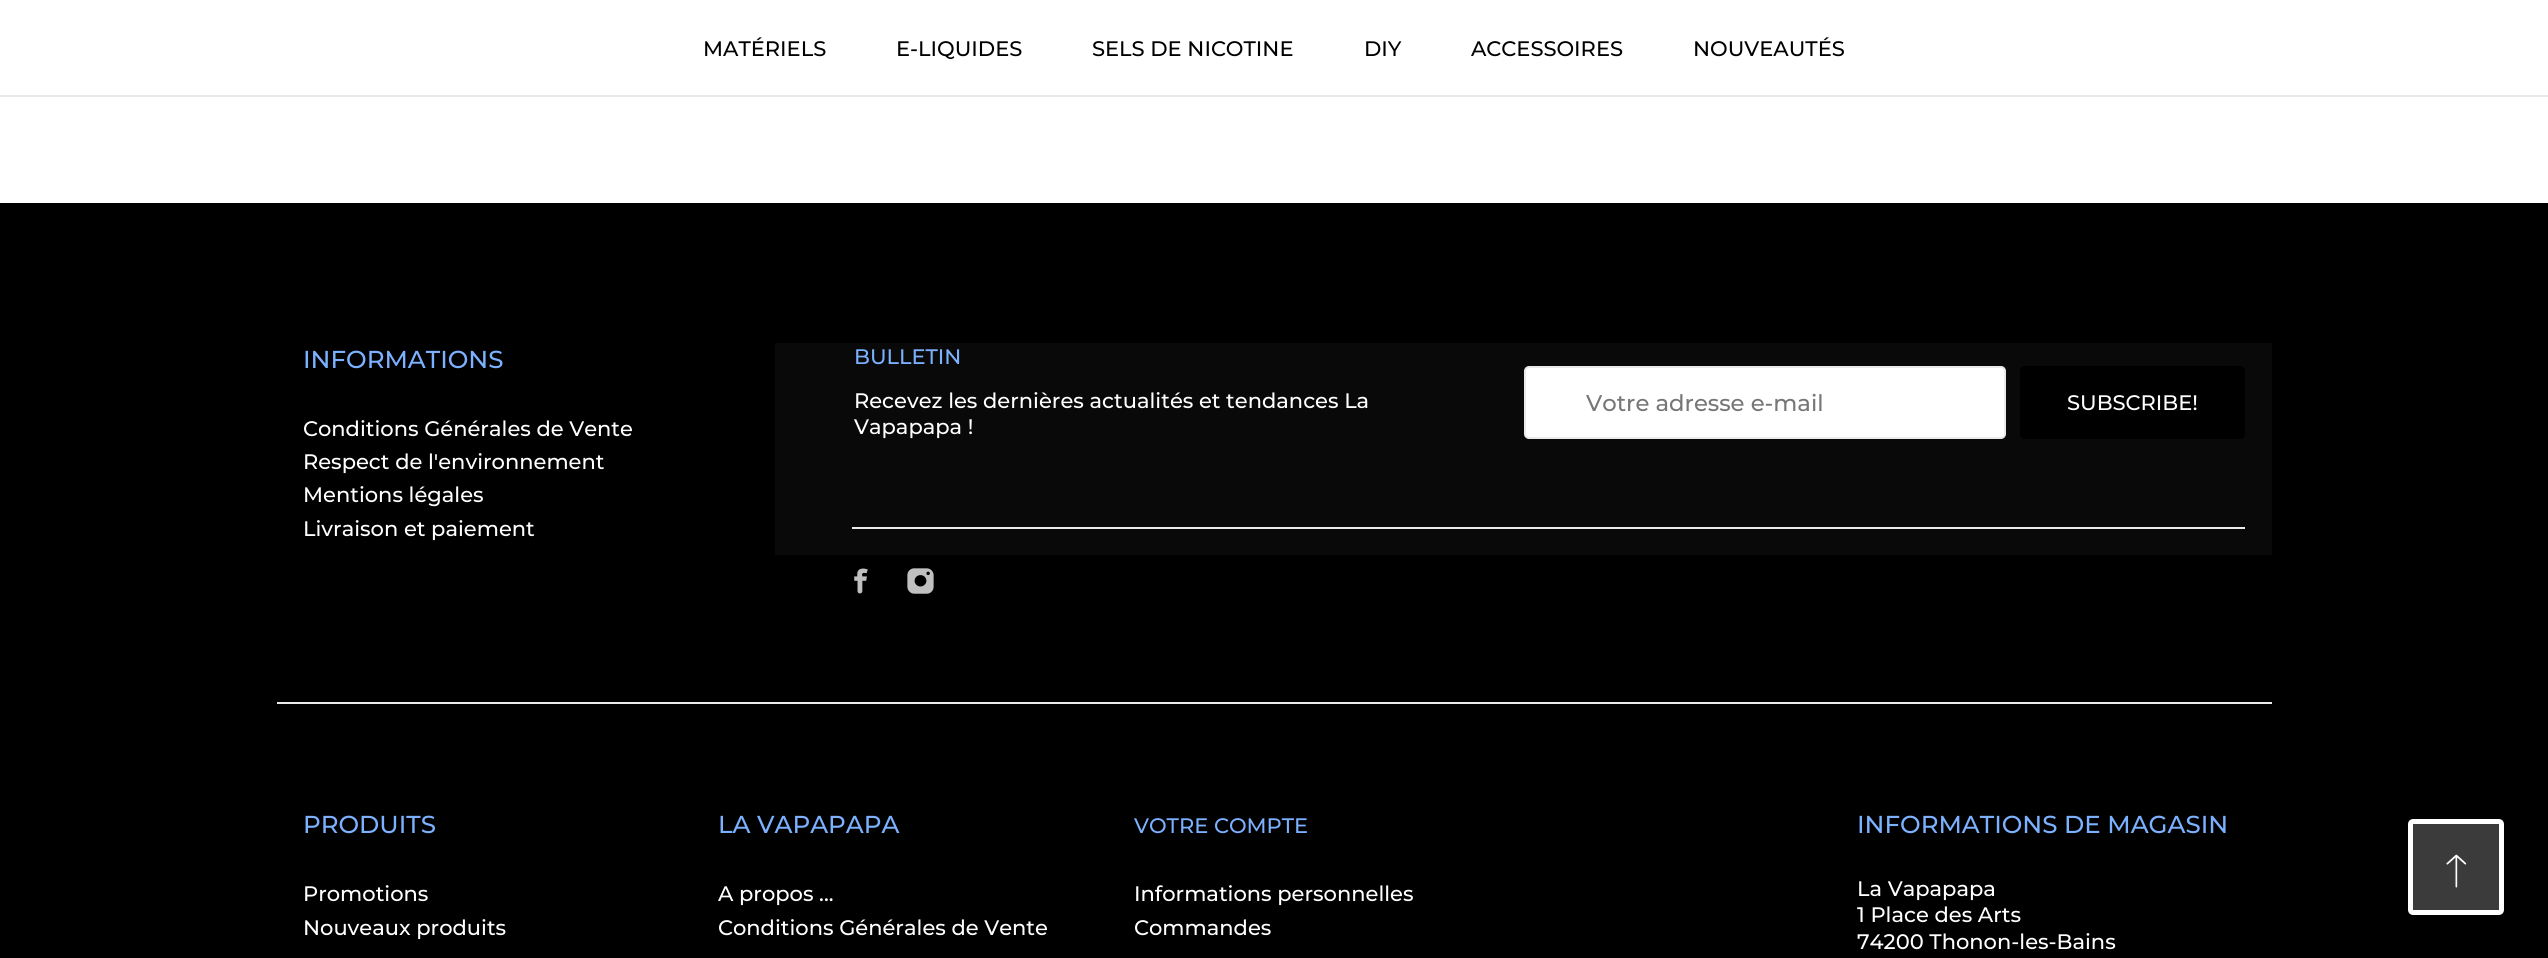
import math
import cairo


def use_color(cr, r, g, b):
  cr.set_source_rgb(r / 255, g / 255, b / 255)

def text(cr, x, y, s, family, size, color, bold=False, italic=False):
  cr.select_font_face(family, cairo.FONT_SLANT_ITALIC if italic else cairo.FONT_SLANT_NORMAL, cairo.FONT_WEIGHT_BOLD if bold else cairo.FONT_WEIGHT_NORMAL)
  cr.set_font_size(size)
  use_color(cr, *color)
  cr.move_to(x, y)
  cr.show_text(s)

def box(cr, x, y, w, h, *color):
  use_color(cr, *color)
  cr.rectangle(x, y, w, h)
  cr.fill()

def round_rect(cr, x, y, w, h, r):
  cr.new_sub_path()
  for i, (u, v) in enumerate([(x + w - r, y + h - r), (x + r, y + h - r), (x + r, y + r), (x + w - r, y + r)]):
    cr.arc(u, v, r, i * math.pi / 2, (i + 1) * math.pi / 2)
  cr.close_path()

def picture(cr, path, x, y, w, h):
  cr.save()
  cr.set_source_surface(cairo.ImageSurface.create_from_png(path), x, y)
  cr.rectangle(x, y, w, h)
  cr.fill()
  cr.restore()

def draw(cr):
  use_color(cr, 255, 255, 255)
  cr.paint()
  box(cr, 0, 95, 2548, 2, 234, 234, 234)
  box(cr, 0, 203, 2548, 755, 0, 0, 0)
  box(cr, 775, 343, 1497, 212, 9, 9, 9)
  use_color(cr, 255, 255, 255)
  round_rect(cr, 1525, 367, 480, 71, 4)
  cr.fill_preserve()
  use_color(cr, 234, 234, 234)
  cr.stroke()
  use_color(cr, 0, 0, 0)
  round_rect(cr, 2020, 366, 225, 73, 5)
  cr.fill()
  box(cr, 852, 527, 1393, 2, 234, 234, 234)
  box(cr, 277, 702, 1995, 2, 234, 234, 234)
  picture(cr, "img_01.png", 854, 568, 14, 26)
  picture(cr, "img_02.png", 907, 568, 27, 26)
  use_color(cr, 59, 59, 59)
  round_rect(cr, 2410.5, 821.5, 91, 91, 2.5)
  cr.fill_preserve()
  use_color(cr, 255, 255, 255)
  cr.set_line_width(5)
  cr.stroke()
  picture(cr, "img_03.png", 2446, 854, 21, 34)
  text(cr, 703, 56, "MATÉRIELS", "Montserrat Medium", 21, (0, 0, 0))
  text(cr, 896, 56, "E-LIQUIDES", "Montserrat Medium", 21, (0, 0, 0))
  text(cr, 1092, 56, "SELS DE NICOTINE", "Montserrat Medium", 21, (0, 0, 0))
  text(cr, 1364, 56, "DIY", "Montserrat Medium", 21, (0, 0, 0))
  text(cr, 1471, 56, "ACCESSOIRES", "Montserrat Medium", 21, (0, 0, 0))
  text(cr, 1693, 56, "NOUVEAUTÉS", "Montserrat Medium", 21, (0, 0, 0))
  text(cr, 303, 368, "INFORMATIONS", "Montserrat Medium", 24.5, (124, 177, 255))
  text(cr, 303, 436, "Conditions Générales de Vente", "Montserrat Medium", 21, (255, 255, 255))
  text(cr, 303, 469, "Respect de l'environnement", "Montserrat Medium", 21, (255, 255, 255))
  text(cr, 303, 502, "Mentions légales", "Montserrat Medium", 21, (255, 255, 255))
  text(cr, 303, 536, "Livraison et paiement", "Montserrat Medium", 21, (255, 255, 255))
  text(cr, 854, 364, "BULLETIN", "Montserrat Medium", 21, (124, 177, 255))
  text(cr, 854, 408, "Recevez les dernières actualités et tendances La", "Montserrat Medium", 21, (255, 255, 255))
  text(cr, 854, 434, "Vapapapa !", "Montserrat Medium", 21, (255, 255, 255))
  text(cr, 1586, 411, "Votre adresse e-mail", "Montserrat Medium", 22.75, (119, 119, 119))
  text(cr, 2067, 410, "SUBSCRIBE!", "Montserrat Medium", 21, (255, 255, 255))
  text(cr, 303, 833, "PRODUITS", "Montserrat Medium", 24.5, (124, 177, 255))
  text(cr, 303, 901, "Promotions", "Montserrat Medium", 21, (255, 255, 255))
  text(cr, 303, 935, "Nouveaux produits", "Montserrat Medium", 21, (255, 255, 255))
  text(cr, 718, 833, "LA VAPAPAPA", "Montserrat Medium", 24.5, (124, 177, 255))
  text(cr, 718, 901, "A propos ...", "Montserrat Medium", 21, (255, 255, 255))
  text(cr, 718, 935, "Conditions Générales de Vente", "Montserrat Medium", 21, (255, 255, 255))
  text(cr, 1134, 833, "VOTRE COMPTE", "Montserrat Medium", 21, (124, 177, 255))
  text(cr, 1134, 901, "Informations personnelles", "Montserrat Medium", 21, (255, 255, 255))
  text(cr, 1134, 935, "Commandes", "Montserrat Medium", 21, (255, 255, 255))
  text(cr, 1857, 833, "INFORMATIONS DE MAGASIN", "Montserrat Medium", 24.5, (124, 177, 255))
  text(cr, 1857, 896, "La Vapapapa", "Montserrat Medium", 21, (255, 255, 255))
  text(cr, 1857, 922, "1 Place des Arts", "Montserrat Medium", 21, (255, 255, 255))
  text(cr, 1857, 949, "74200 Thonon-les-Bains", "Montserrat Medium", 21, (255, 255, 255))


surface = cairo.ImageSurface(cairo.FORMAT_RGB24, 2548, 958)
cr = cairo.Context(surface)
options = cairo.FontOptions()
options.set_hint_metrics(cairo.HINT_METRICS_OFF)
options.set_hint_style(cairo.HINT_STYLE_NONE)
cr.set_font_options(options)
cr.set_miter_limit(4)
draw(cr)
surface.write_to_png("out.png")
